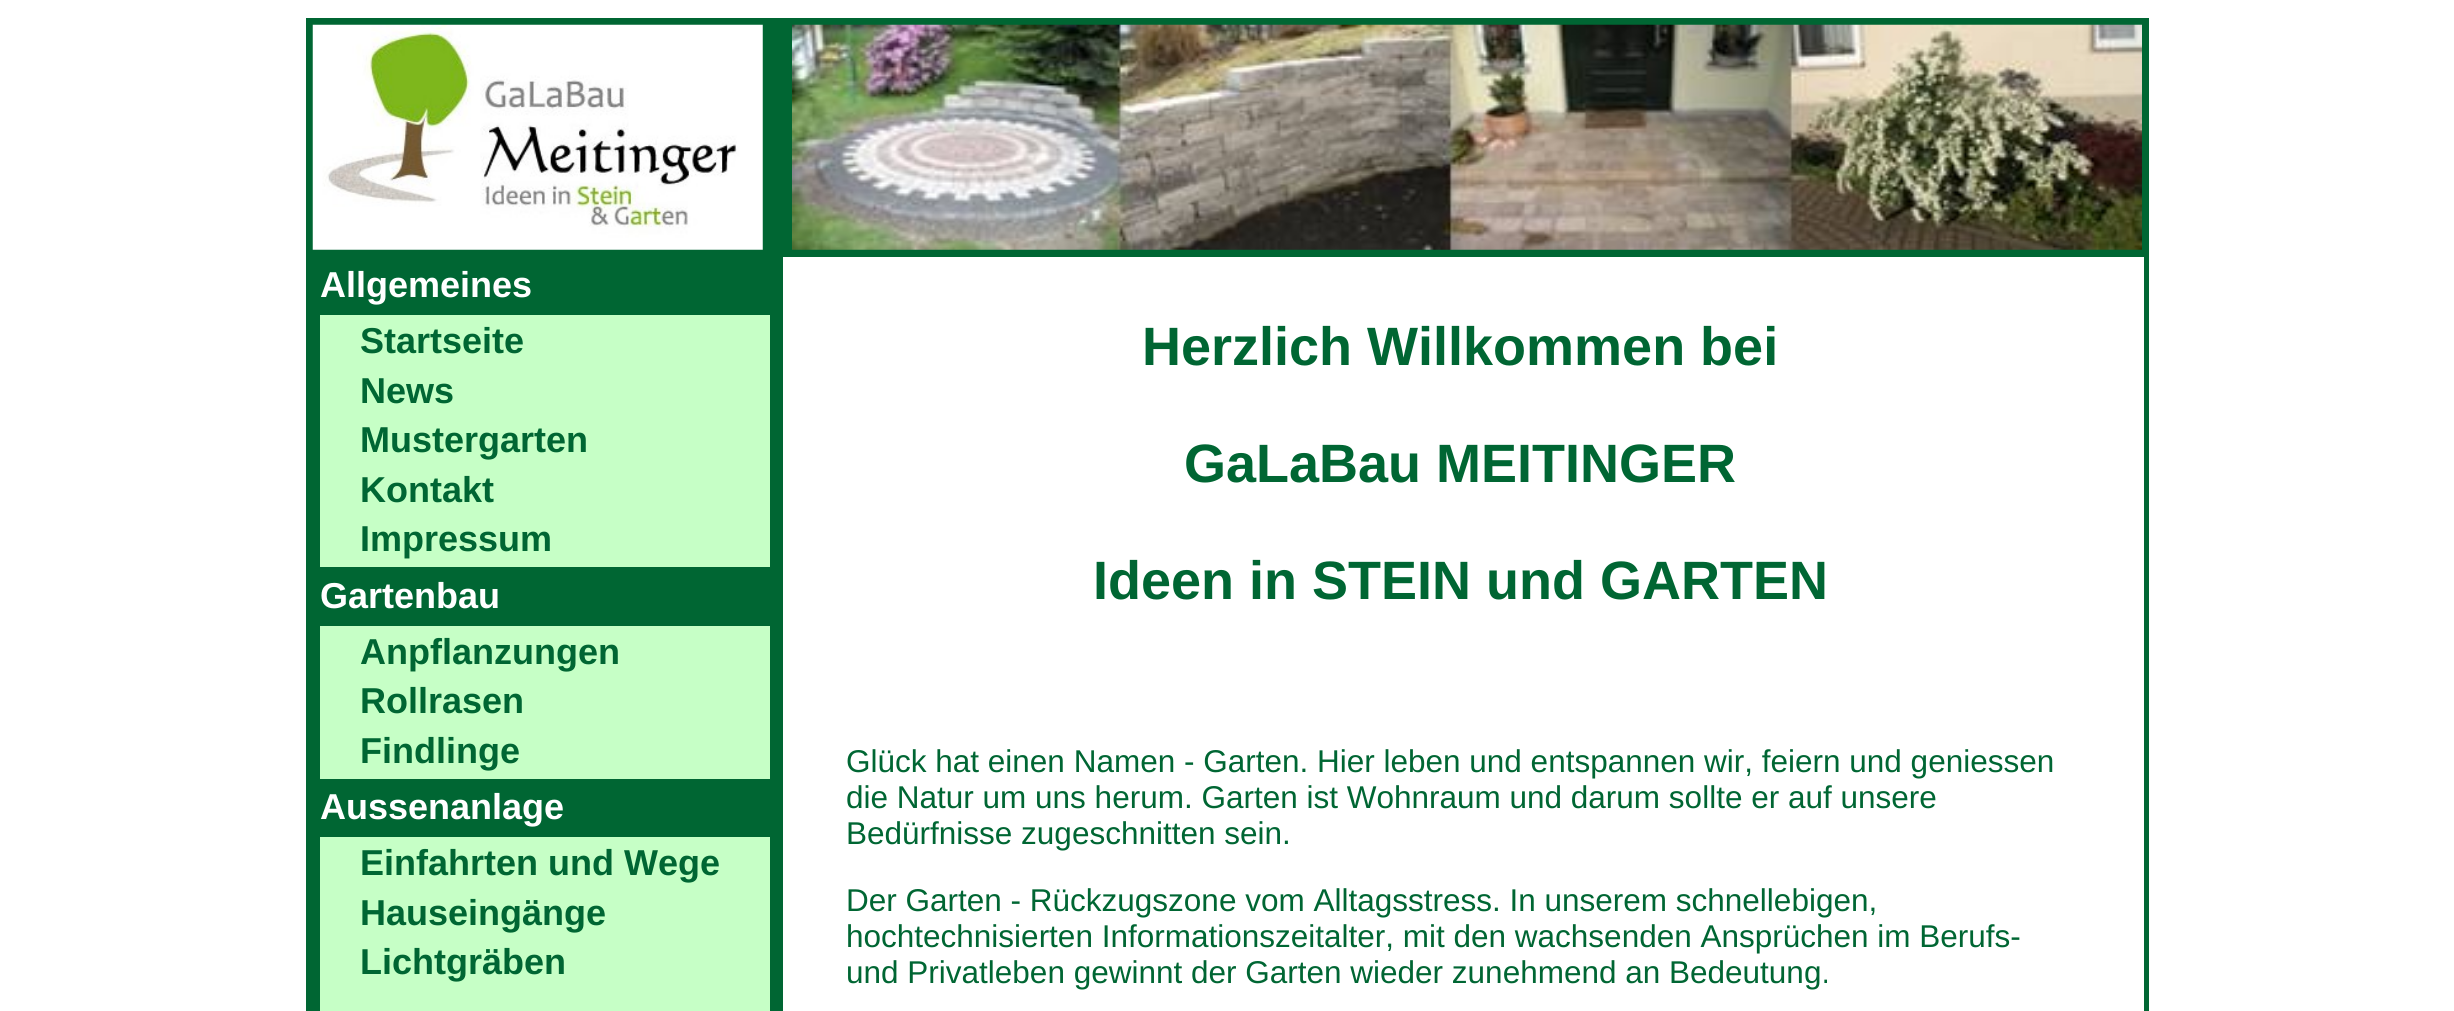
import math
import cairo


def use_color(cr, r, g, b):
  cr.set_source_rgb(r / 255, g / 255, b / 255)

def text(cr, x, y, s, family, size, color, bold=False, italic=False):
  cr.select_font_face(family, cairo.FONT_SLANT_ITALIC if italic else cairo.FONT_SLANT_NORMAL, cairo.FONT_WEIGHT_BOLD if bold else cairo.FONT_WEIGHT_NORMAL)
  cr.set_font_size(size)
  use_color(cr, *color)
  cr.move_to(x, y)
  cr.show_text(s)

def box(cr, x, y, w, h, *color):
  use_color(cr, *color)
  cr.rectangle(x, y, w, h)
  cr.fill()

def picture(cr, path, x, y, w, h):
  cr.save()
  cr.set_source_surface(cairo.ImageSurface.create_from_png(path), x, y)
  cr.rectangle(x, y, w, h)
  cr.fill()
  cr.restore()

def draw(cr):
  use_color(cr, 255, 255, 255)
  cr.paint()
  box(cr, 306, 18, 1843, 993, 0, 102, 51)
  picture(cr, "img_01.png", 312, 24, 451, 226)
  picture(cr, "img_02.png", 792, 24, 1350, 226)
  box(cr, 320, 315, 450, 252, 198, 255, 198)
  box(cr, 320, 626, 450, 153, 198, 255, 198)
  box(cr, 320, 837, 450, 174, 198, 255, 198)
  box(cr, 783, 257, 1361, 754, 255, 255, 255)
  text(cr, 320, 297, "Allgemeines", "Liberation Sans", 36, (255, 255, 255), bold=True)
  text(cr, 360, 353, "Startseite", "Liberation Sans", 36, (0, 102, 51), bold=True)
  text(cr, 360, 403, "News", "Liberation Sans", 36, (0, 102, 51), bold=True)
  text(cr, 360, 452, "Mustergarten", "Liberation Sans", 36, (0, 102, 51), bold=True)
  text(cr, 360, 502, "Kontakt", "Liberation Sans", 36, (0, 102, 51), bold=True)
  text(cr, 360, 551, "Impressum", "Liberation Sans", 36, (0, 102, 51), bold=True)
  text(cr, 320, 608, "Gartenbau", "Liberation Sans", 36, (255, 255, 255), bold=True)
  text(cr, 360, 664, "Anpflanzungen", "Liberation Sans", 36, (0, 102, 51), bold=True)
  text(cr, 360, 713, "Rollrasen", "Liberation Sans", 36, (0, 102, 51), bold=True)
  text(cr, 360, 763, "Findlinge", "Liberation Sans", 36, (0, 102, 51), bold=True)
  text(cr, 320, 819, "Aussenanlage", "Liberation Sans", 36, (255, 255, 255), bold=True)
  text(cr, 360, 875, "Einfahrten und Wege", "Liberation Sans", 36, (0, 102, 51), bold=True)
  text(cr, 360, 925, "Hauseingänge", "Liberation Sans", 36, (0, 102, 51), bold=True)
  text(cr, 360, 974, "Lichtgräben", "Liberation Sans", 36, (0, 102, 51), bold=True)
  text(cr, 1142, 365, "Herzlich Willkommen bei", "Liberation Sans", 54, (0, 102, 51), bold=True)
  text(cr, 1184, 482, "GaLaBau MEITINGER", "Liberation Sans", 54, (0, 102, 51), bold=True)
  text(cr, 1093, 599, "Ideen in STEIN und GARTEN", "Liberation Sans", 54, (0, 102, 51), bold=True)
  text(cr, 846, 772, "Glück hat einen Namen - Garten. Hier leben und entspannen wir, feiern und geniessen", "Liberation Sans", 31.5, (0, 102, 51))
  text(cr, 846, 808, "die Natur um uns herum. Garten ist Wohnraum und darum sollte er auf unsere", "Liberation Sans", 31.5, (0, 102, 51))
  text(cr, 846, 844, "Bedürfnisse zugeschnitten sein.", "Liberation Sans", 31.5, (0, 102, 51))
  text(cr, 846, 911, "Der Garten - Rückzugszone vom Alltagsstress. In unserem schnellebigen,", "Liberation Sans", 31.5, (0, 102, 51))
  text(cr, 846, 947, "hochtechnisierten Informationszeitalter, mit den wachsenden Ansprüchen im Berufs-", "Liberation Sans", 31.5, (0, 102, 51))
  text(cr, 846, 983, "und Privatleben gewinnt der Garten wieder zunehmend an Bedeutung.", "Liberation Sans", 31.5, (0, 102, 51))


surface = cairo.ImageSurface(cairo.FORMAT_RGB24, 2454, 1011)
cr = cairo.Context(surface)
options = cairo.FontOptions()
options.set_hint_metrics(cairo.HINT_METRICS_OFF)
options.set_hint_style(cairo.HINT_STYLE_NONE)
cr.set_font_options(options)
cr.set_miter_limit(4)
draw(cr)
surface.write_to_png("out.png")
